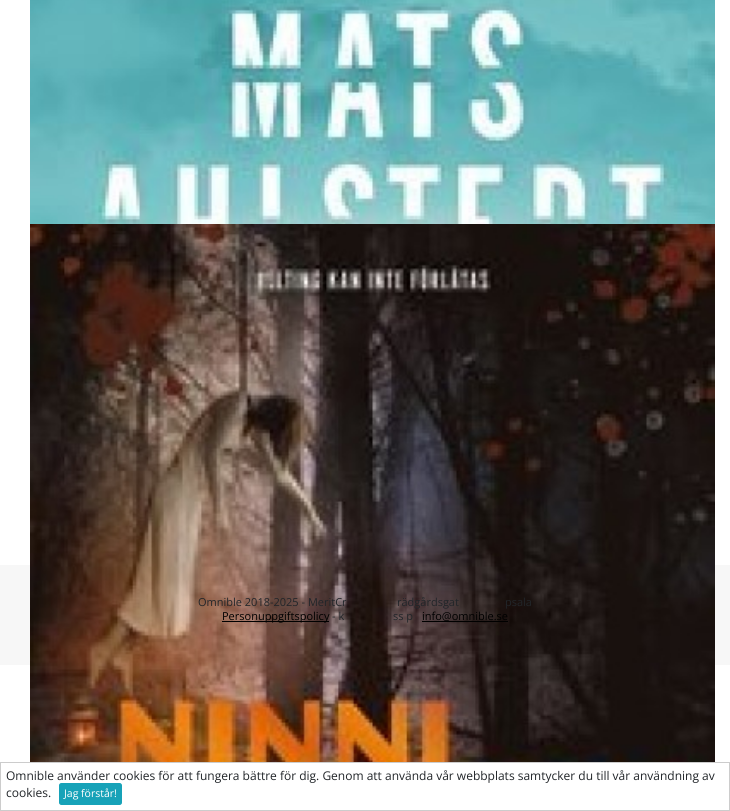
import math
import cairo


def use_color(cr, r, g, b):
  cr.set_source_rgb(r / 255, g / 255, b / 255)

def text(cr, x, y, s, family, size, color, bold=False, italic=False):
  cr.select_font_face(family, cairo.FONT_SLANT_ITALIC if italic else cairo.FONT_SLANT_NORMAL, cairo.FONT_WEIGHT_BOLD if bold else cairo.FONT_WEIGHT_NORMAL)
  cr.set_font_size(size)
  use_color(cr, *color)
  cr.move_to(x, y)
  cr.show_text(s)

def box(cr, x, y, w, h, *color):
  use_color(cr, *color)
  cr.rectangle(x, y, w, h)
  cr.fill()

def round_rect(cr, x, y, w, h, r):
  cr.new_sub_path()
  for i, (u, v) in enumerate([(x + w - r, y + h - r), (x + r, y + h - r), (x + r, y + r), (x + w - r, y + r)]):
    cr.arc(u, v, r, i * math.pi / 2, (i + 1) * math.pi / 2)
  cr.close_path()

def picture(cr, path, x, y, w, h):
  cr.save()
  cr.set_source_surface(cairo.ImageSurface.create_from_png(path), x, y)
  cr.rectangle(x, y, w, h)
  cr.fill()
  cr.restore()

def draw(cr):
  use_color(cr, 255, 255, 255)
  cr.paint()
  picture(cr, "img_01.png", 30, 0, 685, 224)
  box(cr, 0, 565, 730, 100, 247, 247, 247)
  picture(cr, "img_02.png", 30, 224, 685, 538)
  box(cr, 222, 621, 107, 1, 0, 0, 0)
  box(cr, 422, 621, 86, 1, 0, 0, 0)
  cr.rectangle(0.5, 762.5, 729, 48)
  use_color(cr, 204, 204, 204)
  cr.set_line_width(1)
  cr.stroke()
  use_color(cr, 23, 162, 184)
  round_rect(cr, 59.5, 783.5, 62, 21, 2)
  cr.fill_preserve()
  cr.stroke()
  text(cr, 198, 606, "Omnible 2018-2025 - MeritCr", "Open Sans", 11, (33, 37, 41))
  text(cr, 397, 606, "rädgårdsgat", "Open Sans", 11, (33, 37, 41))
  text(cr, 505, 606, "psala", "Open Sans", 11, (33, 37, 41))
  text(cr, 222, 620, "Personuppgiftspolicy", "Open Sans", 11, (0, 0, 0))
  text(cr, 332, 620, "- k", "Open Sans", 11, (33, 37, 41))
  text(cr, 393, 620, "ss p", "Open Sans", 11, (33, 37, 41))
  text(cr, 422, 620, "info@omnible.se", "Open Sans", 11, (0, 0, 0))
  text(cr, 6, 780, "Omnible använder cookies för att fungera bättre för dig. Genom att använda vår webbplats samtycker du till vår användning av", "Open Sans", 12, (33, 37, 41))
  text(cr, 6, 797, "cookies.", "Open Sans", 12, (33, 37, 41))
  text(cr, 64, 797, "Jag förstår!", "Open Sans", 10.5, (255, 255, 255))


surface = cairo.ImageSurface(cairo.FORMAT_RGB24, 730, 811)
cr = cairo.Context(surface)
options = cairo.FontOptions()
options.set_hint_metrics(cairo.HINT_METRICS_OFF)
options.set_hint_style(cairo.HINT_STYLE_NONE)
cr.set_font_options(options)
cr.set_miter_limit(4)
draw(cr)
surface.write_to_png("out.png")
